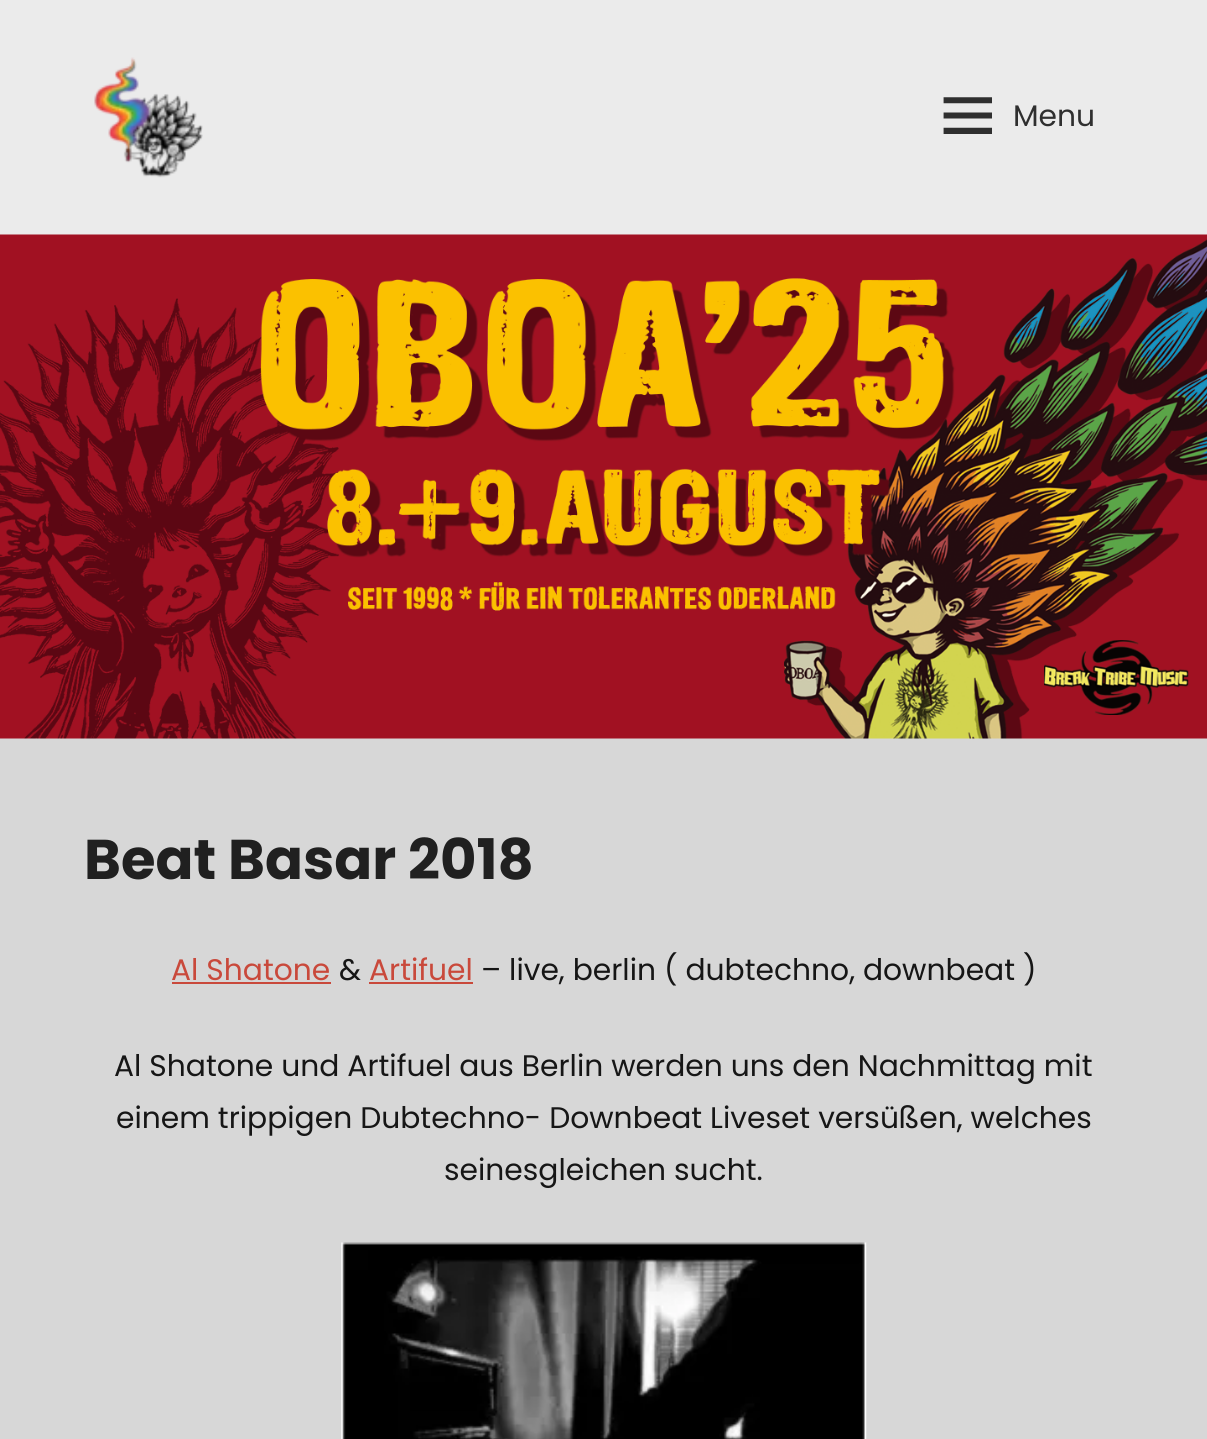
import math
import cairo


def use_color(cr, r, g, b):
  cr.set_source_rgb(r / 255, g / 255, b / 255)

def text(cr, x, y, s, family, size, color, bold=False, italic=False):
  cr.select_font_face(family, cairo.FONT_SLANT_ITALIC if italic else cairo.FONT_SLANT_NORMAL, cairo.FONT_WEIGHT_BOLD if bold else cairo.FONT_WEIGHT_NORMAL)
  cr.set_font_size(size)
  use_color(cr, *color)
  cr.move_to(x, y)
  cr.show_text(s)

def box(cr, x, y, w, h, *color):
  use_color(cr, *color)
  cr.rectangle(x, y, w, h)
  cr.fill()

def picture(cr, path, x, y, w, h):
  cr.save()
  cr.set_source_surface(cairo.ImageSurface.create_from_png(path), x, y)
  cr.rectangle(x, y, w, h)
  cr.fill()
  cr.restore()

def draw(cr):
  use_color(cr, 215, 215, 215)
  cr.paint()
  box(cr, 0, 0, 1207, 235, 235, 235, 235)
  picture(cr, "img_01.png", 94, 57, 109, 121)
  picture(cr, "img_02.png", 943, 97, 49, 37)
  picture(cr, "img_03.png", 0, 234, 1207, 505)
  box(cr, 172, 982, 159, 2, 201, 73, 59)
  box(cr, 369, 982, 104, 2, 201, 73, 59)
  picture(cr, "img_04.png", 341, 1242, 526, 197)
  text(cr, 1013, 126, "Menu", "Poppins", 29.75, (47, 47, 47))
  text(cr, 84, 879, "Beat Basar 2018", "Poppins", 56, (32, 32, 32), bold=True)
  text(cr, 171, 980, "Al Shatone", "Poppins", 29.75, (201, 73, 59))
  text(cr, 339, 980, "&", "Poppins", 29.75, (22, 22, 22))
  text(cr, 369, 980, "Artifuel", "Poppins", 29.75, (201, 73, 59))
  text(cr, 481, 980, "– live, berlin ( dubtechno, downbeat )", "Poppins", 29.75, (22, 22, 22))
  text(cr, 114, 1076, "Al Shatone und Artifuel aus Berlin werden uns den Nachmittag mit", "Poppins", 29.75, (22, 22, 22))
  text(cr, 116, 1128, "einem trippigen Dubtechno- Downbeat Liveset versüßen, welches", "Poppins", 29.75, (22, 22, 22))
  text(cr, 444, 1180, "seinesgleichen sucht.", "Poppins", 29.75, (22, 22, 22))


surface = cairo.ImageSurface(cairo.FORMAT_RGB24, 1207, 1439)
cr = cairo.Context(surface)
options = cairo.FontOptions()
options.set_hint_metrics(cairo.HINT_METRICS_OFF)
options.set_hint_style(cairo.HINT_STYLE_NONE)
cr.set_font_options(options)
cr.set_miter_limit(4)
draw(cr)
surface.write_to_png("out.png")
